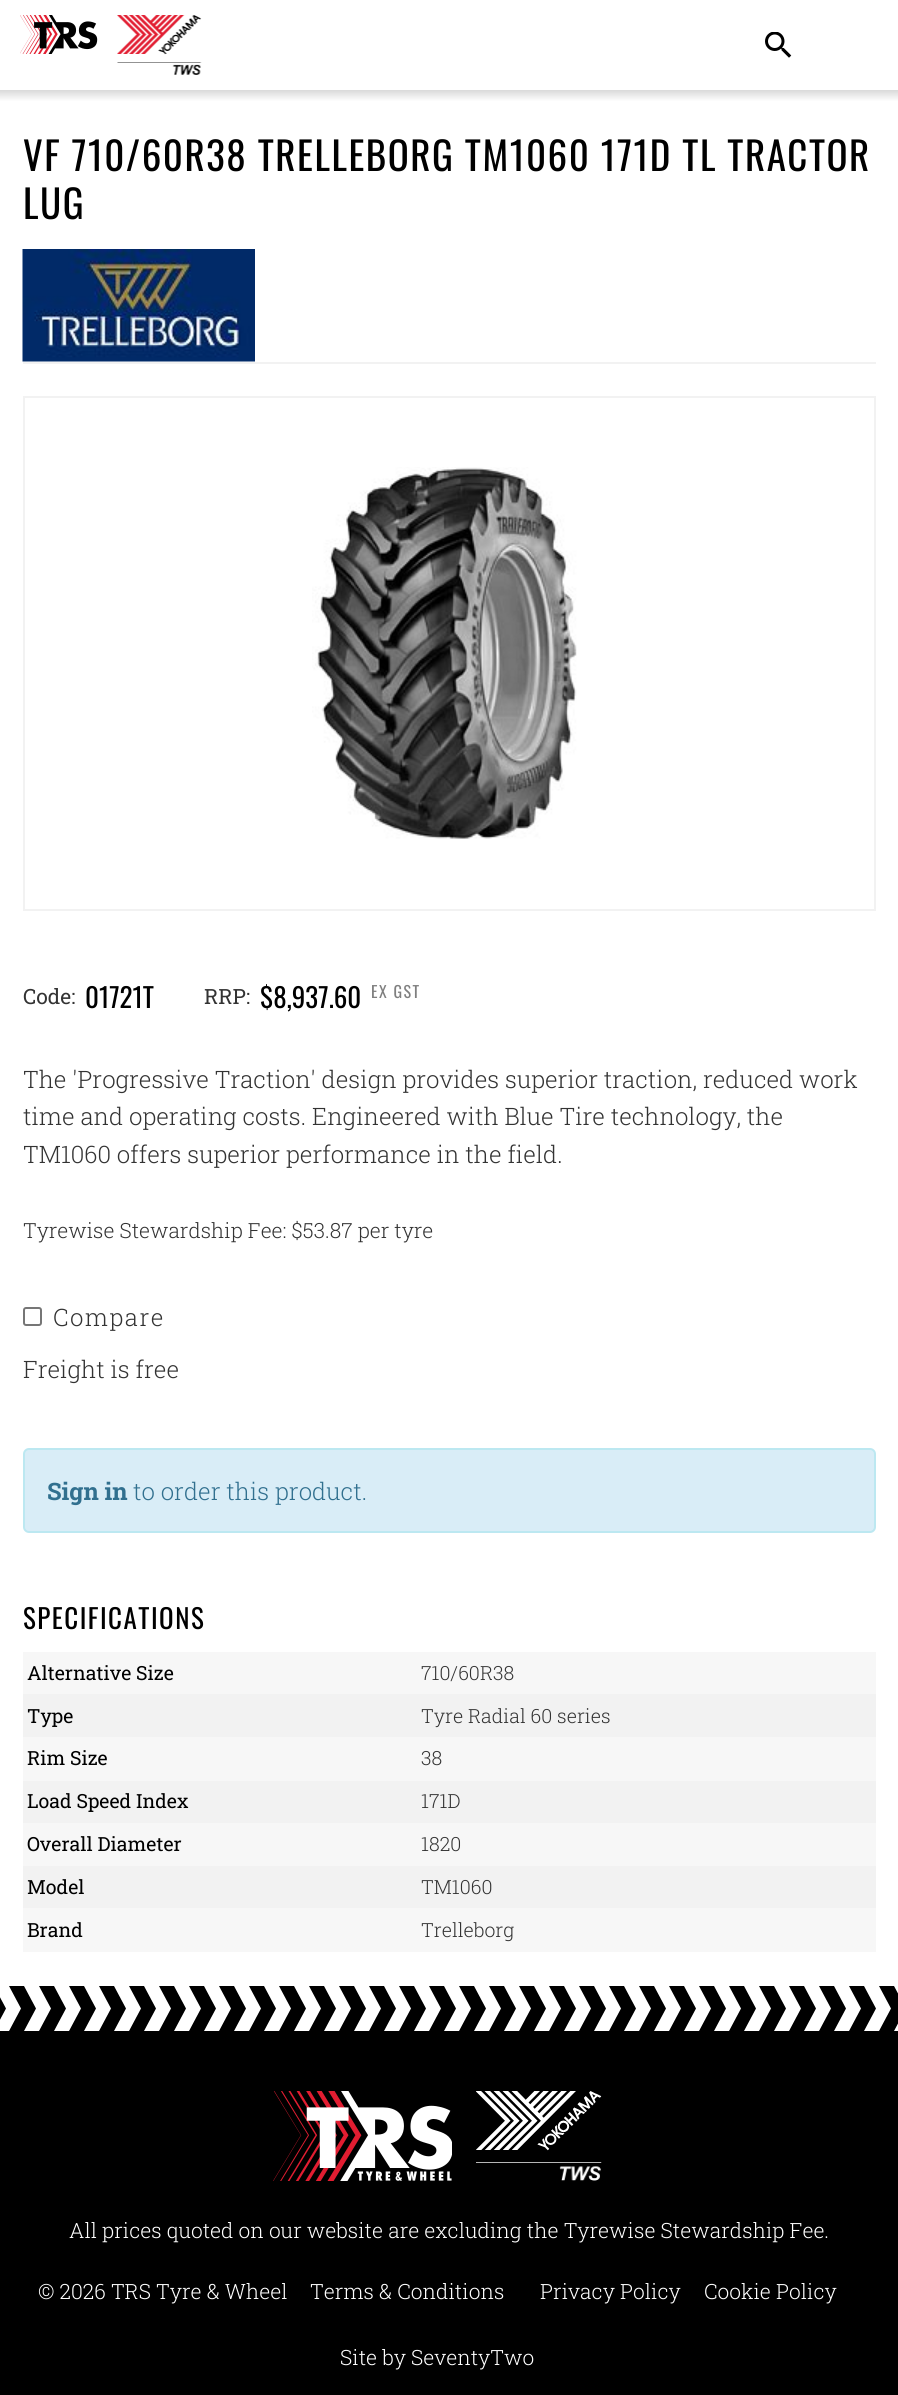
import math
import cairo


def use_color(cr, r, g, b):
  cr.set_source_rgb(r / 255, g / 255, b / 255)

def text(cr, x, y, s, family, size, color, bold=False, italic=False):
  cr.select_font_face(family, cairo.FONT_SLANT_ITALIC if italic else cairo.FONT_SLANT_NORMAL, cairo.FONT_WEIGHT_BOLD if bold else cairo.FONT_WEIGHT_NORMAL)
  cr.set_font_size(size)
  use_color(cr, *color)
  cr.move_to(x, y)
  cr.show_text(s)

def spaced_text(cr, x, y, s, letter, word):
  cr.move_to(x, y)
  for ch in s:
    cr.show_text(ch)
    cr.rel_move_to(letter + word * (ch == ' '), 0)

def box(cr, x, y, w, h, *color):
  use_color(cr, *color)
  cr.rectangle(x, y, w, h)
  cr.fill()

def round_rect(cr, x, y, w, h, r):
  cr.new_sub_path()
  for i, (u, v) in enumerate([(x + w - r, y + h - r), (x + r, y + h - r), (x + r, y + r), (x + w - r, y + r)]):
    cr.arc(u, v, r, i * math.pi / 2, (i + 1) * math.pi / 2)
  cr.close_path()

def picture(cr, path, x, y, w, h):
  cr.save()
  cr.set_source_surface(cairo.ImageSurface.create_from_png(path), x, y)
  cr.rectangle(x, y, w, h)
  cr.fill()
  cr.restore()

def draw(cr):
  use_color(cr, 0, 0, 0)
  cr.paint()
  box(cr, 0, 0, 898, 1986, 255, 255, 255)
  picture(cr, "img_01.png", 20, 15, 78, 39)
  picture(cr, "img_02.png", 117, 15, 85, 60)
  picture(cr, "img_03.png", 765, 32, 27, 26)
  gradient = cairo.LinearGradient(449, 120, 449, 90)
  gradient.add_color_stop_rgba(0.62, 1, 1, 1, 1)
  gradient.add_color_stop_rgba(1, 0.851, 0.851, 0.851, 1)
  cr.set_source(gradient)
  cr.rectangle(0, 90, 898, 11)
  cr.fill()
  picture(cr, "img_04.png", 22, 249, 233, 113)
  box(cr, 23, 362, 853, 2, 242, 242, 242)
  cr.rectangle(24, 397, 851, 513)
  cr.stroke()
  picture(cr, "img_05.png", 312, 467, 265, 372)
  round_rect(cr, 24, 1308, 17, 17, 2)
  use_color(cr, 118, 118, 118)
  cr.stroke()
  use_color(cr, 217, 237, 247)
  round_rect(cr, 24, 1449, 851, 83, 5)
  cr.fill_preserve()
  use_color(cr, 188, 232, 241)
  cr.stroke()
  box(cr, 23, 1652, 853, 42, 247, 247, 247)
  box(cr, 23, 1694, 853, 43, 242, 242, 242)
  box(cr, 23, 1737, 853, 44, 247, 247, 247)
  box(cr, 23, 1781, 853, 42, 242, 242, 242)
  box(cr, 23, 1823, 853, 43, 247, 247, 247)
  box(cr, 23, 1866, 853, 42, 242, 242, 242)
  box(cr, 23, 1908, 853, 44, 247, 247, 247)
  picture(cr, "img_06.png", 0, 1986, 898, 45)
  picture(cr, "img_07.png", 273, 2091, 179, 90)
  picture(cr, "img_08.png", 476, 2091, 126, 90)
  cr.select_font_face("Oswald")
  cr.set_font_size(39)
  use_color(cr, 0, 0, 0)
  spaced_text(cr, 23, 171, "VF 710/60R38 TRELLEBORG TM1060 171D TL TRACTOR", 1.5, 0)
  spaced_text(cr, 23, 219, "LUG", 1.5, 0)
  text(cr, 23, 1004, "Code:", "Roboto Slab", 21, (51, 51, 51))
  text(cr, 85, 1008, "01721T", "Oswald", 27, (0, 0, 0))
  text(cr, 204, 1004, "RRP:", "Roboto Slab", 21, (51, 51, 51))
  text(cr, 260, 1008, "$8,937.60", "Oswald", 27, (0, 0, 0))
  cr.set_font_size(16)
  use_color(cr, 127, 127, 127)
  spaced_text(cr, 371, 998, "EX GST", 1.5, 0)
  text(cr, 23, 1088, "The 'Progressive Traction' design provides superior traction, reduced work", "Roboto Slab Light", 24, (51, 51, 51))
  text(cr, 23, 1125, "time and operating costs. Engineered with Blue Tire technology, the", "Roboto Slab Light", 24, (51, 51, 51))
  text(cr, 23, 1163, "TM1060 offers superior performance in the field.", "Roboto Slab Light", 24, (51, 51, 51))
  text(cr, 23, 1238, "Tyrewise Stewardship Fee: $53.87 per tyre", "Roboto Slab Light", 20.9, (51, 51, 51))
  cr.set_font_size(24)
  spaced_text(cr, 53, 1326, "Compare", 1.5, 0)
  text(cr, 23, 1378, "Freight is free", "Roboto Slab Light", 24, (51, 51, 51))
  text(cr, 47, 1500, "Sign in", "Roboto Slab", 24, (49, 112, 143), bold=True)
  text(cr, 133, 1500, "to order this product.", "Roboto Slab Light", 24, (49, 112, 143))
  cr.select_font_face("Oswald")
  cr.set_font_size(27)
  use_color(cr, 0, 0, 0)
  spaced_text(cr, 23, 1629, "SPECIFICATIONS", 1.5, 0)
  text(cr, 27, 1680, "Alternative Size", "Roboto Slab", 19.5, (0, 0, 0))
  text(cr, 421, 1680, "710/60R38", "Roboto Slab Light", 19.5, (51, 51, 51))
  text(cr, 27, 1723, "Type", "Roboto Slab", 19.5, (0, 0, 0))
  text(cr, 421, 1723, "Tyre Radial 60 series", "Roboto Slab Light", 19.5, (51, 51, 51))
  text(cr, 27, 1765, "Rim Size", "Roboto Slab", 19.5, (0, 0, 0))
  text(cr, 421, 1765, "38", "Roboto Slab Light", 19.5, (51, 51, 51))
  text(cr, 27, 1808, "Load Speed Index", "Roboto Slab", 19.5, (0, 0, 0))
  text(cr, 421, 1808, "171D", "Roboto Slab Light", 19.5, (51, 51, 51))
  text(cr, 27, 1851, "Overall Diameter", "Roboto Slab", 19.5, (0, 0, 0))
  text(cr, 421, 1851, "1820", "Roboto Slab Light", 19.5, (51, 51, 51))
  text(cr, 27, 1894, "Model", "Roboto Slab", 19.5, (0, 0, 0))
  text(cr, 421, 1894, "TM1060", "Roboto Slab Light", 19.5, (51, 51, 51))
  text(cr, 27, 1937, "Brand", "Roboto Slab", 19.5, (0, 0, 0))
  text(cr, 421, 1937, "Trelleborg", "Roboto Slab Light", 19.5, (51, 51, 51))
  text(cr, 69, 2238, "All prices quoted on our website are excluding the Tyrewise Stewardship Fee.", "Roboto Slab Light", 21, (255, 255, 255))
  text(cr, 38, 2299, "© 2026 TRS Tyre & Wheel", "Roboto Slab Light", 21, (255, 255, 255))
  text(cr, 310, 2299, "Terms & Conditions", "Roboto Slab Light", 21, (255, 255, 255))
  text(cr, 540, 2299, "Privacy Policy", "Roboto Slab Light", 21, (255, 255, 255))
  text(cr, 704, 2299, "Cookie Policy", "Roboto Slab Light", 21, (255, 255, 255))
  text(cr, 340, 2365, "Site by SeventyTwo", "Roboto Slab Light", 21, (255, 255, 255))


surface = cairo.ImageSurface(cairo.FORMAT_RGB24, 898, 2395)
cr = cairo.Context(surface)
options = cairo.FontOptions()
options.set_hint_metrics(cairo.HINT_METRICS_OFF)
options.set_hint_style(cairo.HINT_STYLE_NONE)
cr.set_font_options(options)
cr.set_miter_limit(4)
draw(cr)
surface.write_to_png("out.png")
